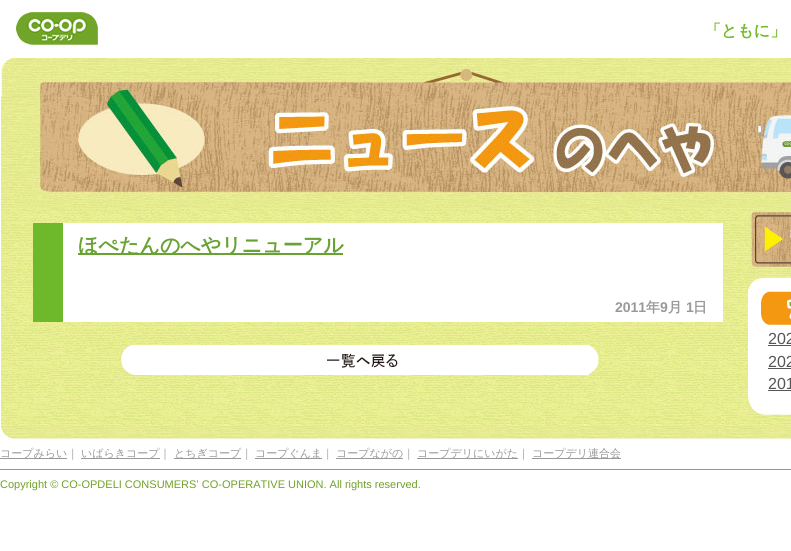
import math
import cairo


def use_color(cr, r, g, b):
  cr.set_source_rgb(r / 255, g / 255, b / 255)

def text(cr, x, y, s, family, size, color, bold=False, italic=False):
  cr.select_font_face(family, cairo.FONT_SLANT_ITALIC if italic else cairo.FONT_SLANT_NORMAL, cairo.FONT_WEIGHT_BOLD if bold else cairo.FONT_WEIGHT_NORMAL)
  cr.set_font_size(size)
  use_color(cr, *color)
  cr.move_to(x, y)
  cr.show_text(s)

def box(cr, x, y, w, h, *color):
  use_color(cr, *color)
  cr.rectangle(x, y, w, h)
  cr.fill()

def picture(cr, path, x, y, w, h):
  cr.save()
  cr.set_source_surface(cairo.ImageSurface.create_from_png(path), x, y)
  cr.rectangle(x, y, w, h)
  cr.fill()
  cr.restore()

def draw(cr):
  use_color(cr, 255, 255, 255)
  cr.paint()
  picture(cr, "img_01.png", 16, 12, 82, 33)
  picture(cr, "img_02.png", 1, 208, 790, 217)
  picture(cr, "img_03.png", 1, 58, 790, 150)
  box(cr, 63, 223, 660, 99, 255, 255, 255)
  box(cr, 33, 223, 30, 99, 110, 185, 43)
  box(cr, 78, 253, 265, 2, 104, 162, 50)
  box(cr, 135, 345, 454, 30, 255, 255, 255)
  picture(cr, "img_04.png", 120, 345, 15, 30)
  picture(cr, "img_05.png", 327, 353, 71, 15)
  picture(cr, "img_06.png", 589, 345, 11, 30)
  picture(cr, "img_07.png", 748, 208, 43, 64)
  box(cr, 748, 289, 43, 107, 255, 255, 255)
  picture(cr, "img_08.png", 748, 272, 43, 17)
  picture(cr, "img_09.png", 761, 291, 30, 34)
  box(cr, 768, 345, 23, 1, 85, 85, 85)
  box(cr, 768, 368, 23, 1, 85, 85, 85)
  box(cr, 768, 390, 23, 1, 85, 85, 85)
  picture(cr, "img_10.png", 748, 396, 43, 19)
  picture(cr, "img_11.png", 1, 425, 790, 14)
  box(cr, 0, 469, 791, 1, 114, 187, 42)
  box(cr, 0, 458, 67, 1, 153, 153, 153)
  box(cr, 81, 458, 79, 1, 153, 153, 153)
  box(cr, 174, 458, 67, 1, 153, 153, 153)
  box(cr, 255, 458, 67, 1, 153, 153, 153)
  box(cr, 336, 458, 67, 1, 153, 153, 153)
  box(cr, 417, 458, 101, 1, 153, 153, 153)
  box(cr, 532, 458, 89, 1, 153, 153, 153)
  text(cr, 705, 36, "「ともに」", "WenQuanYi Zen Hei", 16, (114, 187, 42), bold=True)
  text(cr, 78, 252, "ほぺたんのへやリニューアル", "WenQuanYi Zen Hei", 20, (104, 162, 50), bold=True)
  text(cr, 615, 312, "2011", "Liberation Sans", 14, (153, 153, 153), bold=True)
  text(cr, 646, 312, "年", "WenQuanYi Zen Hei", 14, (153, 153, 153), bold=True)
  text(cr, 660, 312, "9", "Liberation Sans", 14, (153, 153, 153), bold=True)
  text(cr, 668, 312, "月", "WenQuanYi Zen Hei", 14, (153, 153, 153), bold=True)
  text(cr, 686, 312, "1", "Liberation Sans", 14, (153, 153, 153), bold=True)
  text(cr, 693, 312, "日", "WenQuanYi Zen Hei", 14, (153, 153, 153), bold=True)
  text(cr, 768, 344, "202", "Liberation Sans", 16, (85, 85, 85))
  text(cr, 768, 367, "202", "Liberation Sans", 16, (85, 85, 85))
  text(cr, 768, 389, "201", "Liberation Sans", 16, (85, 85, 85))
  text(cr, 0, 457, "コープみらい｜", "WenQuanYi Zen Hei Medium", 11, (153, 153, 153))
  text(cr, 81, 457, "いばらきコープ｜", "WenQuanYi Zen Hei Medium", 11, (153, 153, 153))
  text(cr, 174, 457, "とちぎコープ｜", "WenQuanYi Zen Hei Medium", 11, (153, 153, 153))
  text(cr, 255, 457, "コープぐんま｜", "WenQuanYi Zen Hei Medium", 11, (153, 153, 153))
  text(cr, 336, 457, "コープながの｜", "WenQuanYi Zen Hei Medium", 11, (153, 153, 153))
  text(cr, 417, 457, "コープデリにいがた｜", "WenQuanYi Zen Hei Medium", 11, (153, 153, 153))
  text(cr, 532, 457, "コープデリ連合会", "WenQuanYi Zen Hei Medium", 11, (153, 153, 153))
  text(cr, 0, 488, "Copyright © CO-OPDELI CONSUMERS’ CO-OPERATIVE UNION. All rights reserved.", "Liberation Sans", 11, (113, 161, 39))


surface = cairo.ImageSurface(cairo.FORMAT_RGB24, 791, 551)
cr = cairo.Context(surface)
options = cairo.FontOptions()
options.set_hint_metrics(cairo.HINT_METRICS_OFF)
options.set_hint_style(cairo.HINT_STYLE_NONE)
cr.set_font_options(options)
cr.set_miter_limit(4)
draw(cr)
surface.write_to_png("out.png")
